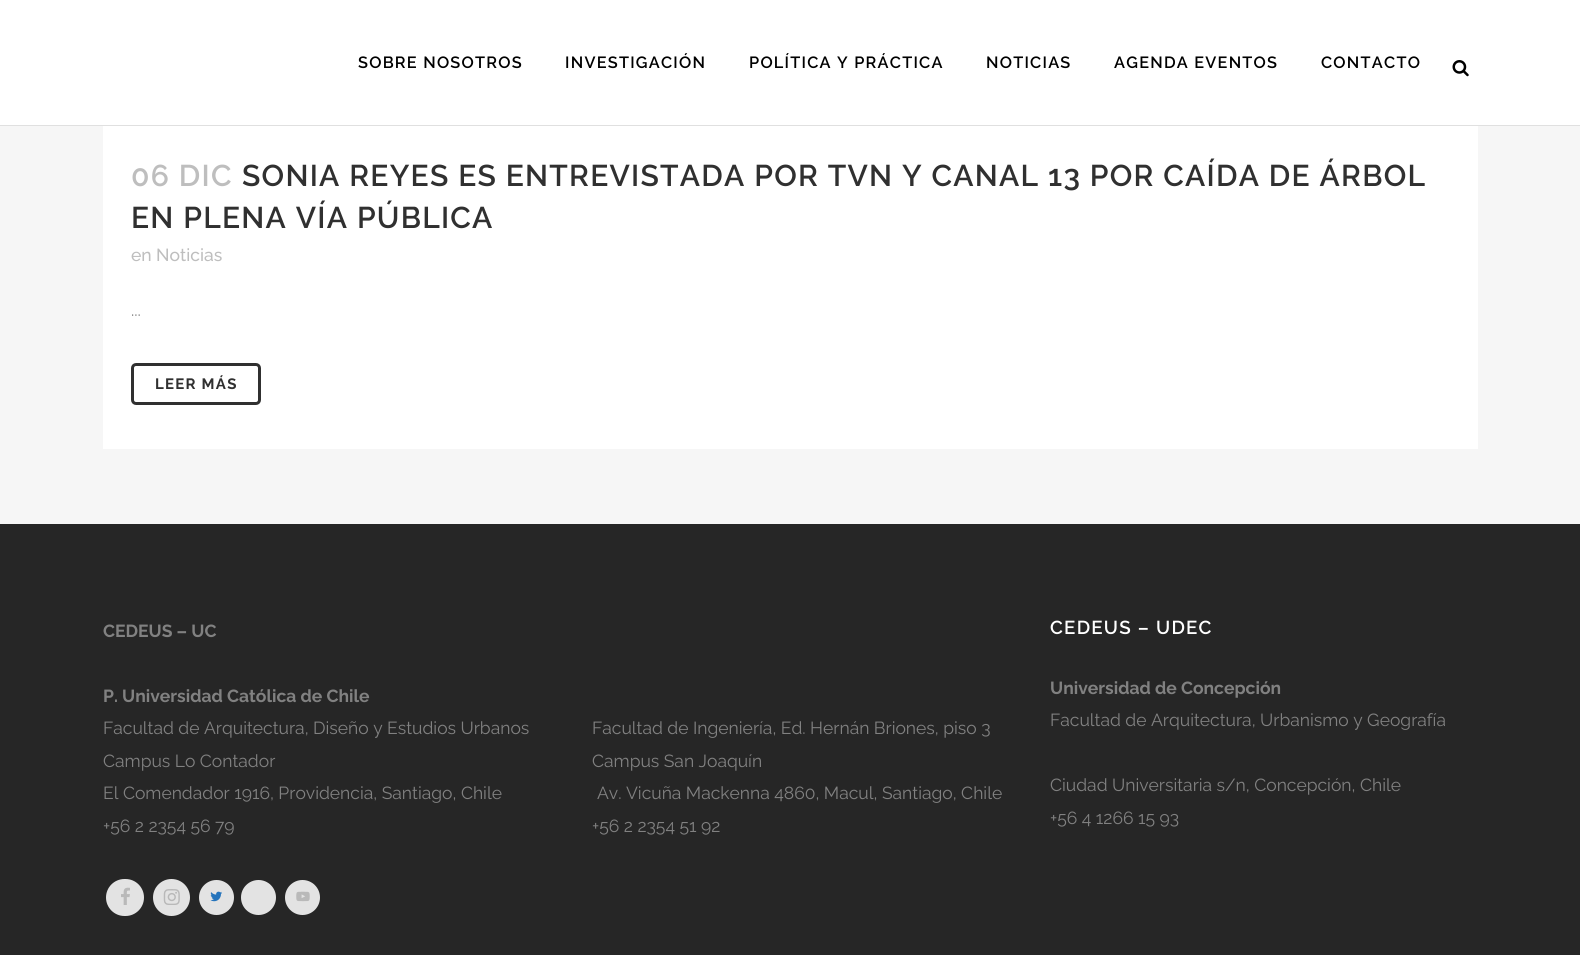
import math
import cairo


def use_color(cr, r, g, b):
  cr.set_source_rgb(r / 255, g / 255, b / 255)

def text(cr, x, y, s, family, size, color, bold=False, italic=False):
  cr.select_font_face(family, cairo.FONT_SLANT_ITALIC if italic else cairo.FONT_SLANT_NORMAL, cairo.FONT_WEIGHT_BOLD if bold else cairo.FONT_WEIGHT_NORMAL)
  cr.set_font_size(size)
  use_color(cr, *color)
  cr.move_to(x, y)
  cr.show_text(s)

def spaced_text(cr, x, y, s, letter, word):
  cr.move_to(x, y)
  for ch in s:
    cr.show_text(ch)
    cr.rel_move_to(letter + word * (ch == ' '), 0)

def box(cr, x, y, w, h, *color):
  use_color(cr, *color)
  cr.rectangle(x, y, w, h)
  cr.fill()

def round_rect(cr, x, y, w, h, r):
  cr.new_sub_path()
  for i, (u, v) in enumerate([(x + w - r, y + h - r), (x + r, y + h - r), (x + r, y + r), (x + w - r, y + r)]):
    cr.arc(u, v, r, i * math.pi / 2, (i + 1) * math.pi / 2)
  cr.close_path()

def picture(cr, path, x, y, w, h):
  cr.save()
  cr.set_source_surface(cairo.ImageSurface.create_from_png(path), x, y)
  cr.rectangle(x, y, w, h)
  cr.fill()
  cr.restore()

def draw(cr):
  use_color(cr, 246, 246, 246)
  cr.paint()
  box(cr, 0, 0, 1580, 125, 255, 255, 255)
  box(cr, 0, 125, 1580, 1, 224, 224, 224)
  picture(cr, "img_01.png", 1452, 60, 17, 17)
  box(cr, 103, 126, 1375, 323, 255, 255, 255)
  round_rect(cr, 132.5, 364.5, 127, 39, 3.5)
  use_color(cr, 48, 48, 48)
  cr.set_line_width(3)
  cr.stroke()
  box(cr, 0, 524, 1580, 431, 38, 38, 38)
  use_color(cr, 227, 227, 227)
  round_rect(cr, 106, 879, 38, 37, 18.5)
  cr.fill()
  picture(cr, "img_02.png", 121, 887, 9, 18)
  cr.arc(171.5, 897.5, 18.5, 0, 2 * math.pi)
  cr.fill()
  picture(cr, "img_03.png", 163, 889, 17, 16)
  cr.arc(216.5, 897.5, 17.5, 0, 2 * math.pi)
  cr.fill()
  picture(cr, "img_04.png", 210, 891, 12, 11)
  cr.arc(258.5, 897.5, 17.5, 0, 2 * math.pi)
  cr.fill()
  cr.arc(302.5, 897.5, 17.5, 0, 2 * math.pi)
  cr.fill()
  picture(cr, "img_05.png", 296, 891, 14, 11)
  cr.select_font_face("Raleway SemiBold")
  cr.set_font_size(16.25)
  use_color(cr, 0, 0, 0)
  spaced_text(cr, 358, 68, "SOBRE NOSOTROS", 1.25, 0)
  spaced_text(cr, 565, 68, "INVESTIGACIÓN", 1.25, 0)
  spaced_text(cr, 749, 68, "POLÍTICA Y PRÁCTICA", 1.25, 0)
  spaced_text(cr, 986, 68, "NOTICIAS", 1.25, 0)
  spaced_text(cr, 1114, 68, "AGENDA EVENTOS", 1.25, 0)
  spaced_text(cr, 1321, 68, "CONTACTO", 1.25, 0)
  cr.set_font_size(30)
  use_color(cr, 190, 190, 190)
  spaced_text(cr, 131, 186, "06 DIC", 1.25, 0)
  use_color(cr, 48, 48, 48)
  spaced_text(cr, 242, 186, "SONIA REYES ES ENTREVISTADA POR TVN Y CANAL 13 POR CAÍDA DE ÁRBOL", 1.25, 0)
  spaced_text(cr, 131, 228, "EN PLENA VÍA PÚBLICA", 1.25, 0)
  text(cr, 131, 261, "en Noticias", "Raleway Medium", 17.5, (190, 190, 190))
  text(cr, 131, 316, "...", "Raleway", 17.5, (129, 129, 129))
  cr.select_font_face("Raleway", cairo.FONT_SLANT_NORMAL, cairo.FONT_WEIGHT_BOLD)
  cr.set_font_size(15)
  use_color(cr, 48, 48, 48)
  spaced_text(cr, 155, 389, "LEER MÁS", 1.25, 0)
  text(cr, 103, 637, "CEDEUS – UC", "Raleway", 17.5, (129, 129, 129), bold=True)
  text(cr, 103, 702, "P. Universidad Católica de Chile", "Raleway", 17.5, (129, 129, 129), bold=True)
  text(cr, 103, 734, "Facultad de Arquitectura, Diseño y Estudios Urbanos", "Raleway", 17.5, (129, 129, 129))
  text(cr, 103, 767, "Campus Lo Contador", "Raleway", 17.5, (129, 129, 129))
  text(cr, 103, 799, "El Comendador 1916, Providencia, Santiago, Chile", "Raleway", 17.5, (129, 129, 129))
  text(cr, 103, 832, "+56 2 2354 56 79", "Raleway", 17.5, (129, 129, 129))
  text(cr, 592, 734, "Facultad de Ingeniería, Ed. Hernán Briones, piso 3", "Raleway", 17.5, (129, 129, 129))
  text(cr, 592, 767, "Campus San Joaquín", "Raleway", 17.5, (129, 129, 129))
  text(cr, 597, 799, "Av. Vicuña Mackenna 4860, Macul, Santiago, Chile", "Raleway", 17.5, (129, 129, 129))
  text(cr, 592, 832, "+56 2 2354 51 92", "Raleway", 17.5, (129, 129, 129))
  cr.select_font_face("Raleway SemiBold")
  cr.set_font_size(18.75)
  use_color(cr, 255, 255, 255)
  spaced_text(cr, 1050, 634, "CEDEUS – UDEC", 1.25, 0)
  text(cr, 1050, 694, "Universidad de Concepción", "Raleway", 17.5, (129, 129, 129), bold=True)
  text(cr, 1050, 726, "Facultad de Arquitectura, Urbanismo y Geografía", "Raleway", 17.5, (129, 129, 129))
  text(cr, 1050, 791, "Ciudad Universitaria s/n, Concepción, Chile", "Raleway", 17.5, (129, 129, 129))
  text(cr, 1050, 824, "+56 4 1266 15 93", "Raleway", 17.5, (129, 129, 129))


surface = cairo.ImageSurface(cairo.FORMAT_RGB24, 1580, 955)
cr = cairo.Context(surface)
options = cairo.FontOptions()
options.set_hint_metrics(cairo.HINT_METRICS_OFF)
options.set_hint_style(cairo.HINT_STYLE_NONE)
cr.set_font_options(options)
cr.set_miter_limit(4)
draw(cr)
surface.write_to_png("out.png")
